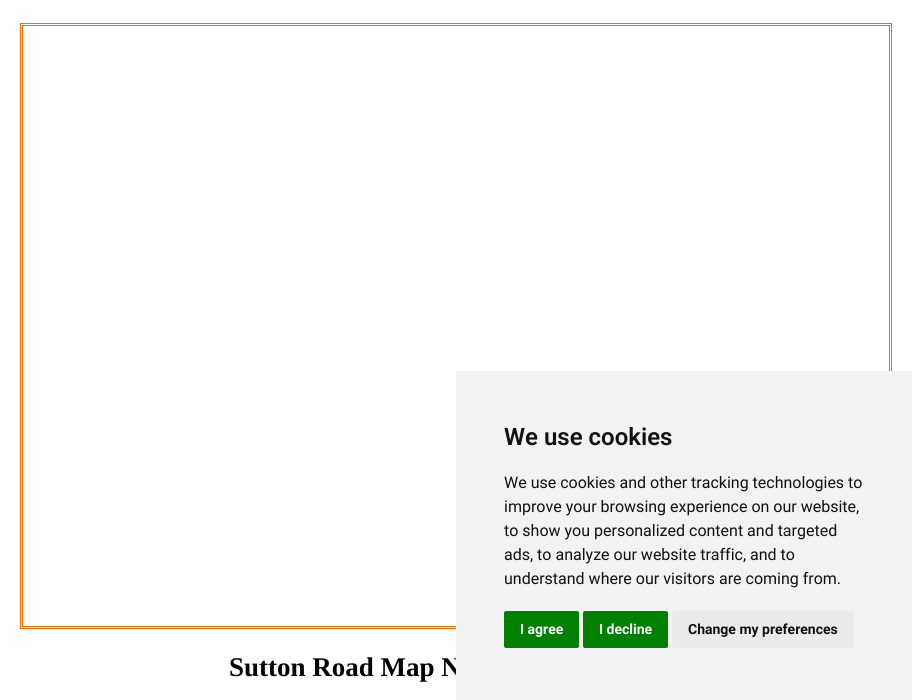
import math
import cairo


def use_color(cr, r, g, b):
  cr.set_source_rgb(r / 255, g / 255, b / 255)

def text(cr, x, y, s, family, size, color, bold=False, italic=False):
  cr.select_font_face(family, cairo.FONT_SLANT_ITALIC if italic else cairo.FONT_SLANT_NORMAL, cairo.FONT_WEIGHT_BOLD if bold else cairo.FONT_WEIGHT_NORMAL)
  cr.set_font_size(size)
  use_color(cr, *color)
  cr.move_to(x, y)
  cr.show_text(s)

def box(cr, x, y, w, h, *color):
  use_color(cr, *color)
  cr.rectangle(x, y, w, h)
  cr.fill()

def round_rect(cr, x, y, w, h, r):
  cr.new_sub_path()
  for i, (u, v) in enumerate([(x + w - r, y + h - r), (x + r, y + h - r), (x + r, y + r), (x + w - r, y + r)]):
    cr.arc(u, v, r, i * math.pi / 2, (i + 1) * math.pi / 2)
  cr.close_path()

def draw(cr):
  use_color(cr, 255, 255, 255)
  cr.paint()
  cr.rectangle(20.5, 23.5, 871, 605)
  use_color(cr, 255, 102, 0)
  cr.set_line_width(1)
  cr.stroke()
  cr.rectangle(22.5, 25.5, 867, 601)
  cr.stroke()
  text(cr, 229, 676, "Sutton Road Map N", "Liberation Serif", 27, (0, 0, 0), bold=True)
  box(cr, 456, 371, 456, 329, 242, 242, 242)
  use_color(cr, 234, 234, 234)
  round_rect(cr, 672, 611, 182, 37, 2)
  cr.fill()
  text(cr, 688, 634, "Change my preferences", "Roboto", 14, (17, 17, 17), bold=True)
  use_color(cr, 0, 128, 0)
  round_rect(cr, 583, 611, 85, 37, 2)
  cr.fill()
  text(cr, 599, 634, "I decline", "Roboto", 14, (255, 255, 255), bold=True)
  use_color(cr, 0, 128, 0)
  round_rect(cr, 504, 611, 75, 37, 2)
  cr.fill()
  text(cr, 520, 634, "I agree", "Roboto", 14, (255, 255, 255), bold=True)
  text(cr, 504, 584, "understand where our visitors are coming from.", "Roboto", 16, (17, 17, 17))
  text(cr, 504, 560, "ads, to analyze our website traffic, and to", "Roboto", 16, (17, 17, 17))
  text(cr, 504, 536, "to show you personalized content and targeted", "Roboto", 16, (17, 17, 17))
  text(cr, 504, 512, "improve your browsing experience on our website,", "Roboto", 16, (17, 17, 17))
  text(cr, 504, 488, "We use cookies and other tracking technologies to", "Roboto", 16, (17, 17, 17))
  text(cr, 504, 445, "We use cookies", "Roboto SemiBold", 24, (17, 17, 17))


surface = cairo.ImageSurface(cairo.FORMAT_RGB24, 912, 700)
cr = cairo.Context(surface)
options = cairo.FontOptions()
options.set_hint_metrics(cairo.HINT_METRICS_OFF)
options.set_hint_style(cairo.HINT_STYLE_NONE)
cr.set_font_options(options)
cr.set_miter_limit(4)
draw(cr)
surface.write_to_png("out.png")
